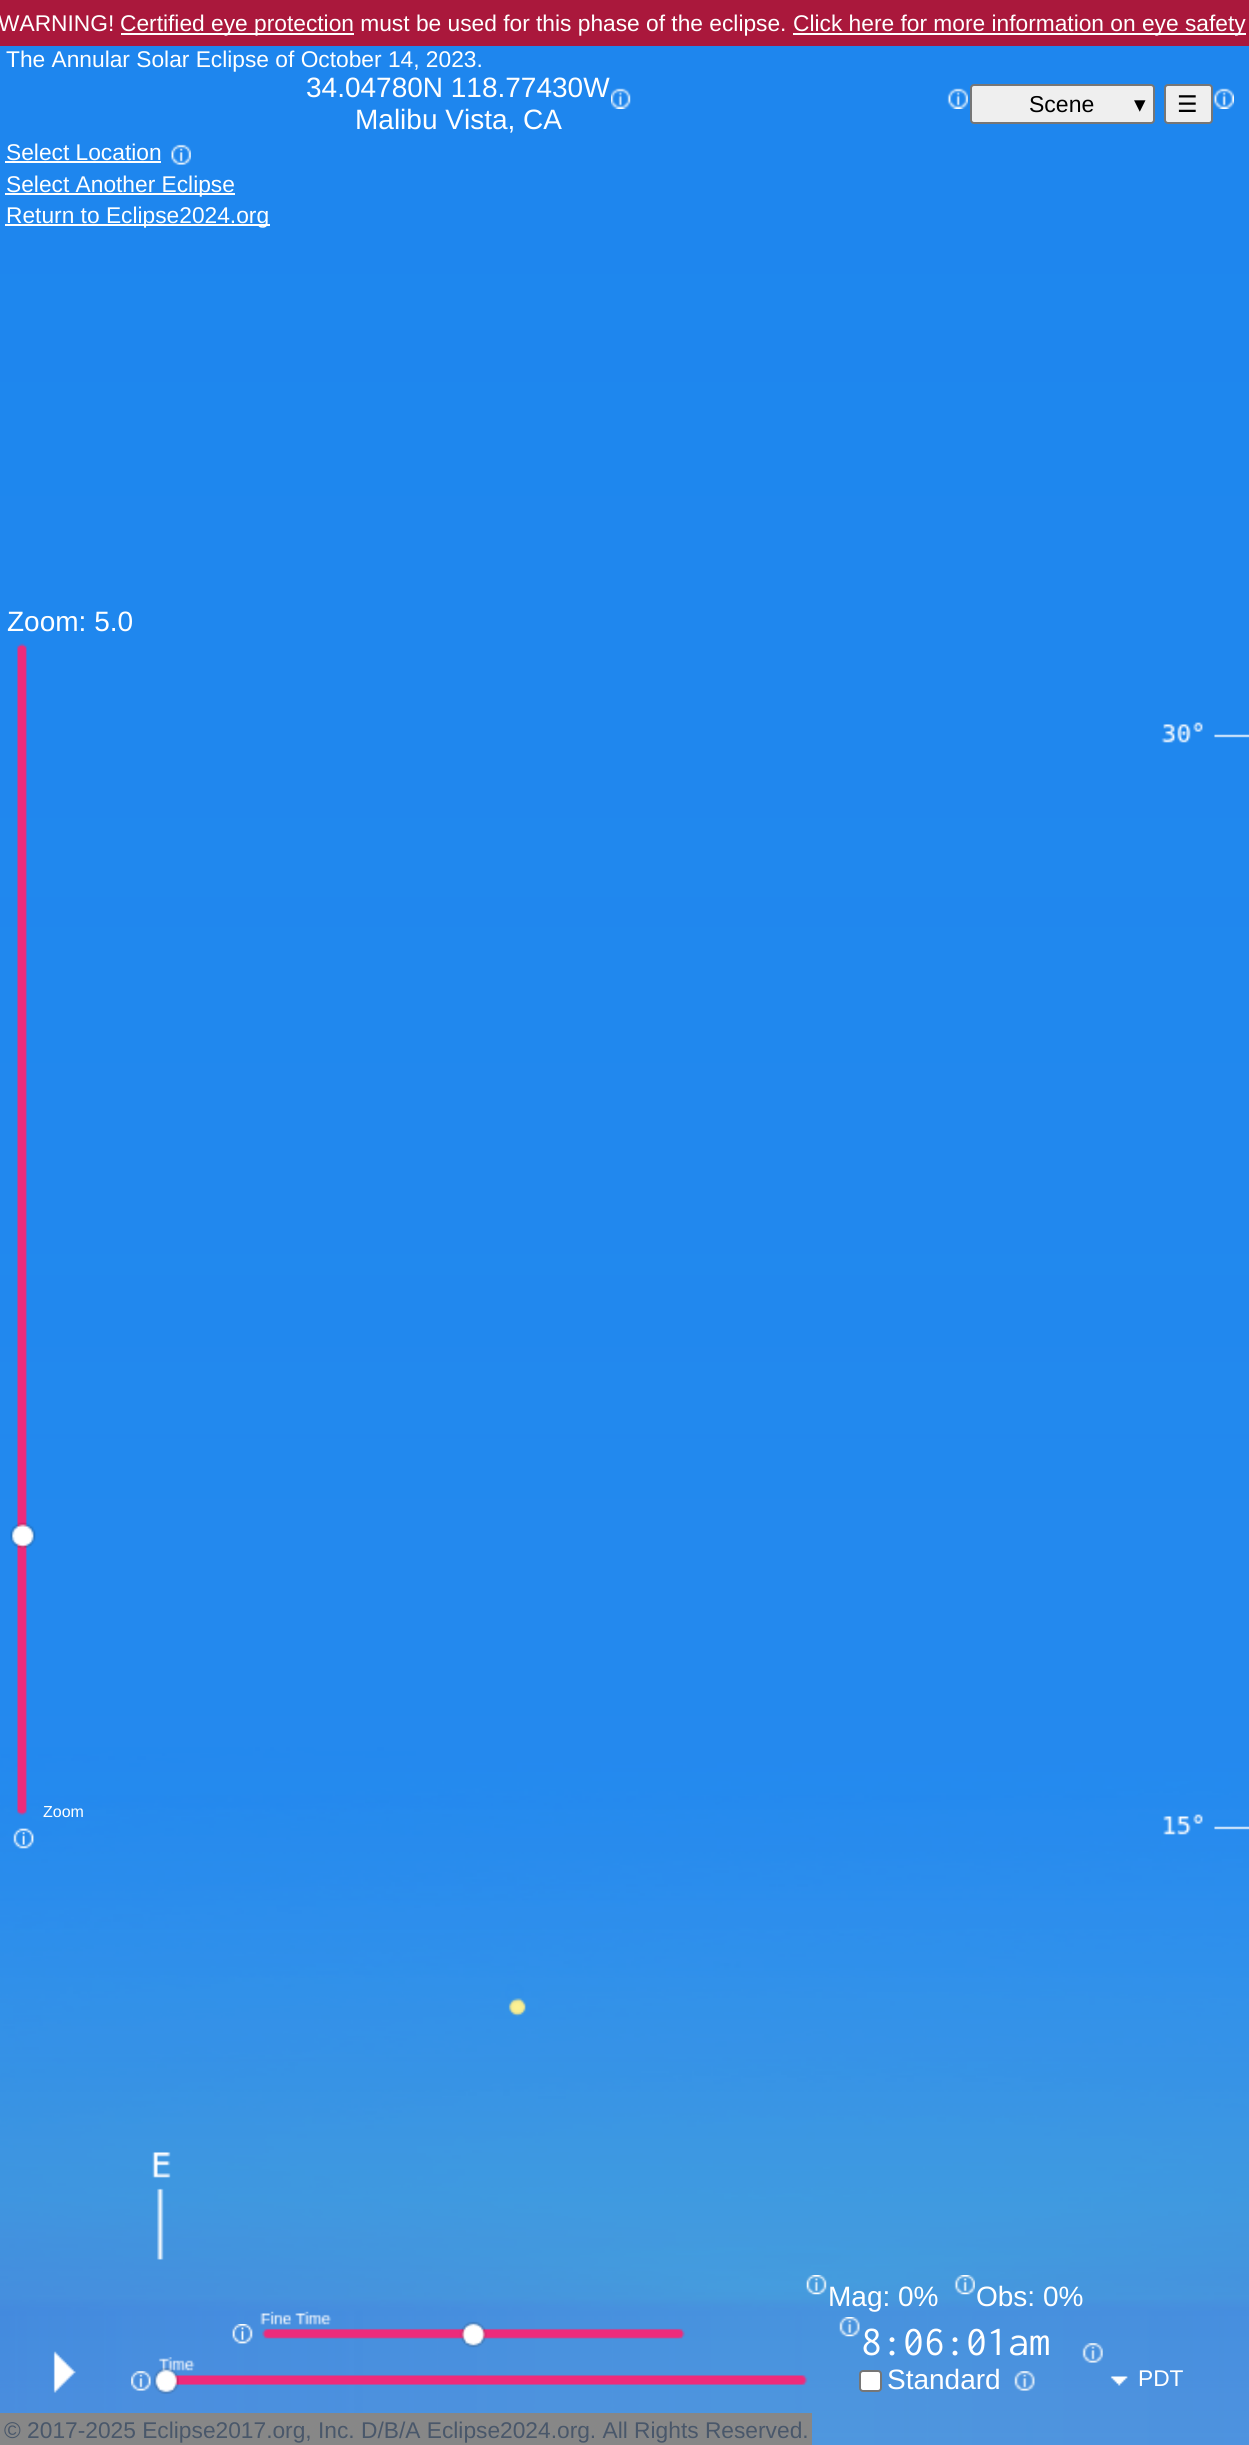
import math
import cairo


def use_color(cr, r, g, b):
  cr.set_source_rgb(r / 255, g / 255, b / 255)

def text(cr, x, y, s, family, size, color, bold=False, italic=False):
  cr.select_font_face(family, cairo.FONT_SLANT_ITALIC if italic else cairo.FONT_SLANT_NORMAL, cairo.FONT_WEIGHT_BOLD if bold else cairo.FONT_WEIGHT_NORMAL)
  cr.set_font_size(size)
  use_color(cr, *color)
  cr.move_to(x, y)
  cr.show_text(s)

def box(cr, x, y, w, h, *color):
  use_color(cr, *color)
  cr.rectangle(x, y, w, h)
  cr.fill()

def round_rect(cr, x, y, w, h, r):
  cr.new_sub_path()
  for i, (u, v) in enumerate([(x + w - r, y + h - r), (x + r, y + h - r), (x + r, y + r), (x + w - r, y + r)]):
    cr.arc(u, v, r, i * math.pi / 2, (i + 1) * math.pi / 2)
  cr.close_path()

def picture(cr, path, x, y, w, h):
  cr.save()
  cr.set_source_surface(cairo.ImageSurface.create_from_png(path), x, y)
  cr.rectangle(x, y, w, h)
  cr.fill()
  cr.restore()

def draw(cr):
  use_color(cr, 255, 255, 255)
  cr.paint()
  box(cr, 0, 0, 1249, 46, 170, 24, 60)
  box(cr, 121, 33, 233, 2, 255, 255, 255)
  box(cr, 793, 33, 453, 2, 255, 255, 255)
  picture(cr, "img_05.png", 0, 46, 1249, 2399)
  picture(cr, "img_01.png", 611, 88, 20, 21)
  picture(cr, "img_02.png", 947, 88, 21, 21)
  use_color(cr, 239, 239, 239)
  round_rect(cr, 971, 85, 183, 38, 3)
  cr.fill_preserve()
  use_color(cr, 118, 118, 118)
  cr.stroke()
  use_color(cr, 239, 239, 239)
  round_rect(cr, 1165, 85, 47, 38, 3)
  cr.fill_preserve()
  use_color(cr, 118, 118, 118)
  cr.stroke()
  picture(cr, "img_03.png", 1213, 88, 21, 21)
  box(cr, 5, 161, 156, 2, 255, 255, 255)
  picture(cr, "img_04.png", 171, 144, 20, 21)
  box(cr, 5, 193, 230, 2, 255, 255, 255)
  box(cr, 5, 224, 265, 2, 255, 255, 255)
  picture(cr, "img_06.png", 152, 722, 1097, 1538)
  picture(cr, "img_07.png", 10, 643, 26, 1173)
  picture(cr, "img_08.png", 13, 1828, 21, 21)
  picture(cr, "img_09.png", 53, 2351, 23, 42)
  picture(cr, "img_10.png", 232, 2324, 21, 20)
  picture(cr, "img_11.png", 260, 2311, 425, 37)
  picture(cr, "img_12.png", 131, 2371, 20, 20)
  picture(cr, "img_13.png", 153, 2357, 655, 37)
  picture(cr, "img_14.png", 806, 2275, 21, 20)
  picture(cr, "img_15.png", 954, 2275, 21, 20)
  picture(cr, "img_16.png", 839, 2317, 21, 20)
  round_rect(cr, 860, 2371, 21, 20, 3)
  cr.fill_preserve()
  use_color(cr, 118, 118, 118)
  cr.stroke()
  picture(cr, "img_17.png", 1014, 2371, 21, 20)
  picture(cr, "img_18.png", 1082, 2343, 21, 20)
  picture(cr, "img_19.png", 1110, 2376, 18, 10)
  box(cr, 0, 2413, 812, 32, 135, 135, 135)
  text(cr, -2, 31, "WARNING!", "Liberation Sans", 22.75, (255, 255, 255))
  text(cr, 120, 31, "Certified eye protection must be used for this phase of the eclipse.", "Liberation Sans", 22.75, (255, 255, 255))
  text(cr, 793, 31, "Click here for more information on eye safety", "Liberation Sans", 22.75, (255, 255, 255))
  text(cr, 6, 67, "The Annular Solar Eclipse of October 14, 2023.", "Liberation Sans", 22.75, (255, 255, 255))
  text(cr, 306, 97, "34.04780N 118.77430W", "Liberation Sans", 28, (255, 255, 255))
  text(cr, 355, 129, "Malibu Vista, CA", "Liberation Sans", 28, (255, 255, 255))
  text(cr, 1029, 112, "Scene", "Liberation Sans", 23, (0, 0, 0))
  text(cr, 1134, 112, "▾", "DejaVu Sans", 23, (0, 0, 0))
  text(cr, 1177, 112, "☰", "DejaVu Sans", 23, (0, 0, 0))
  text(cr, 6, 160, "Select Location", "Liberation Sans", 22.75, (255, 255, 255))
  text(cr, 6, 192, "Select Another Eclipse", "Liberation Sans", 22.75, (255, 255, 255))
  text(cr, 6, 223, "Return to Eclipse2024.org", "Liberation Sans", 22.75, (255, 255, 255))
  text(cr, 7, 631, "Zoom: 5.0", "Liberation Sans", 28, (255, 255, 255))
  text(cr, 43, 1817, "Zoom", "Liberation Sans", 16, (255, 255, 255))
  text(cr, 828, 2306, "Mag: 0%", "Liberation Sans", 28, (255, 255, 255))
  text(cr, 976, 2306, "Obs: 0%", "Liberation Sans", 28, (255, 255, 255))
  text(cr, 861, 2355, "8:06:01am", "Inconsolata", 42, (255, 255, 255))
  text(cr, 887, 2389, "Standard", "Liberation Sans", 28, (255, 255, 255))
  text(cr, 1138, 2386, "PDT", "Liberation Sans", 22.75, (255, 255, 255))
  text(cr, 4, 2438, "© 2017-2025 Eclipse2017.org, Inc. D/B/A Eclipse2024.org. All Rights Reserved.", "Liberation Sans", 22.75, (73, 87, 106))


surface = cairo.ImageSurface(cairo.FORMAT_RGB24, 1249, 2445)
cr = cairo.Context(surface)
options = cairo.FontOptions()
options.set_hint_metrics(cairo.HINT_METRICS_OFF)
options.set_hint_style(cairo.HINT_STYLE_NONE)
cr.set_font_options(options)
cr.set_miter_limit(4)
draw(cr)
surface.write_to_png("out.png")
